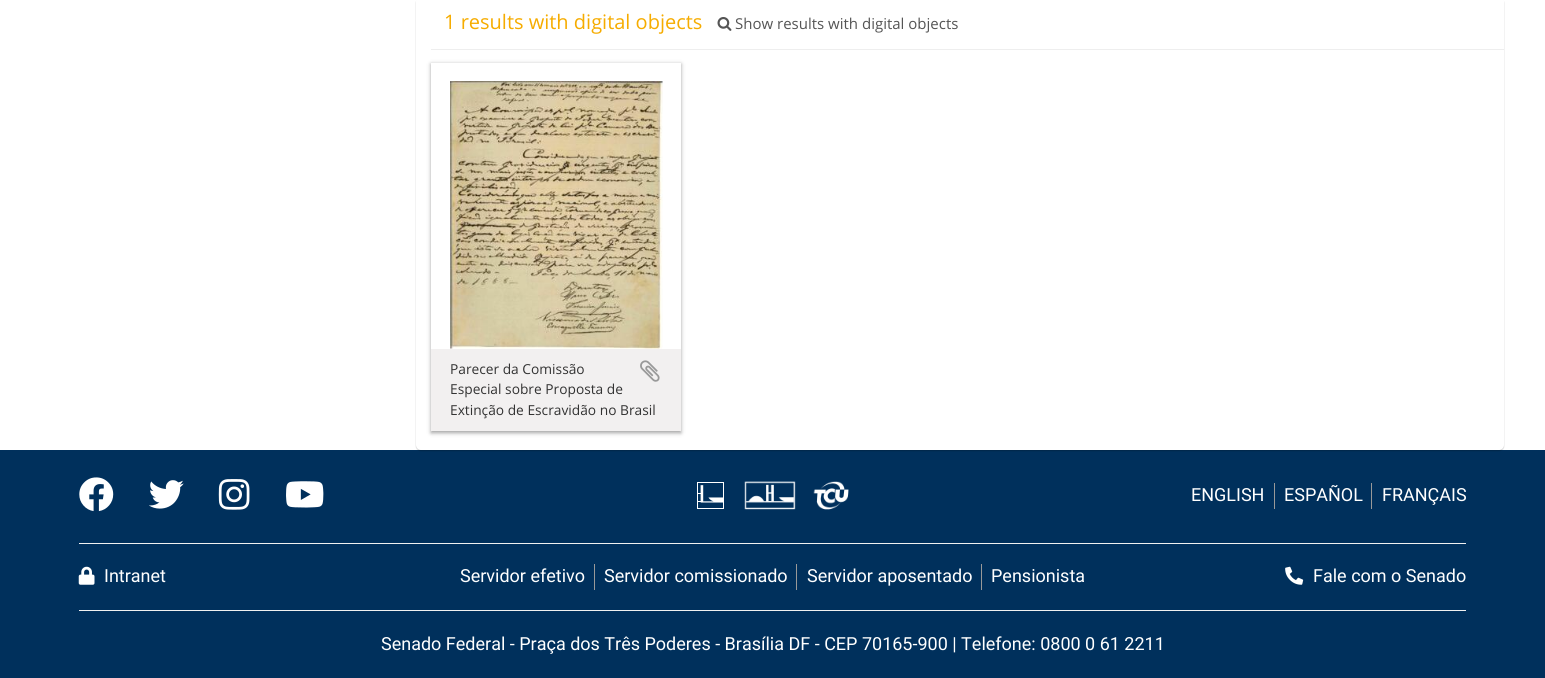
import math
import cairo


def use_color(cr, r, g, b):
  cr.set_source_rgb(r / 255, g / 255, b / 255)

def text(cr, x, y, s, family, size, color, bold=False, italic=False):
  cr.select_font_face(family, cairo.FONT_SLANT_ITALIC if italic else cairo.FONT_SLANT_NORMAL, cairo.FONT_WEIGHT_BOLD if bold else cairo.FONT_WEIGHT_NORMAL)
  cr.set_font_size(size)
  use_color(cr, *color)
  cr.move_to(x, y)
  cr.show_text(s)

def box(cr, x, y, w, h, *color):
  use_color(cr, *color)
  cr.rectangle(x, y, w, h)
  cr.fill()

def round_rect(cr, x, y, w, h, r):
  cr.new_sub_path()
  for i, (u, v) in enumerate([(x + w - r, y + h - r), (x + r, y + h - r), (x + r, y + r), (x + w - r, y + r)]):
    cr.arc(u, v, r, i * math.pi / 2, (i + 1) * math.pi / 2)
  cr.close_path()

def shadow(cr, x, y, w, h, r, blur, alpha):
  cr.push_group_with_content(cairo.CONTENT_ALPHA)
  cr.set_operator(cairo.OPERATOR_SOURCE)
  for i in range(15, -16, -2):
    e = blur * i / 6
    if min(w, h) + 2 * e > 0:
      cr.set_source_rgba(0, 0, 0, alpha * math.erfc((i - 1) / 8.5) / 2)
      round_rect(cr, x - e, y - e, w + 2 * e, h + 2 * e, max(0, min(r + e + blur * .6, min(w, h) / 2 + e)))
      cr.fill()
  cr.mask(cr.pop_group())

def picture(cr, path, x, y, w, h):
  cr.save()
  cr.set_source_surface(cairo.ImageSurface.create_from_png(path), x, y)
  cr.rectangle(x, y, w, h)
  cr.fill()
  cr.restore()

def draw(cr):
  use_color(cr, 255, 255, 255)
  cr.paint()
  box(cr, 0, 450, 1545, 228, 0, 48, 92)
  use_color(cr, 0, 0, 0)
  shadow(cr, 416, -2, 1088, 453, 5, 0.5, 0.2)
  use_color(cr, 255, 255, 255)
  round_rect(cr, 416, -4, 1088, 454, 5)
  cr.fill()
  box(cr, 431, 49, 1073, 1, 238, 238, 238)
  picture(cr, "img_01.png", 717, 17, 15, 14)
  use_color(cr, 25, 25, 25)
  shadow(cr, 431, 64, 250, 369, 0, 2, 0.4)
  box(cr, 431, 63, 250, 286, 255, 255, 255)
  picture(cr, "img_02.png", 450, 81, 213, 268)
  box(cr, 431, 349, 250, 82, 242, 240, 240)
  picture(cr, "img_03.png", 640, 360, 20, 22)
  picture(cr, "img_04.png", 79, 477, 35, 35)
  picture(cr, "img_05.png", 149, 480, 35, 29)
  picture(cr, "img_06.png", 218, 479, 32, 31)
  picture(cr, "img_07.png", 286, 481, 38, 27)
  picture(cr, "img_08.png", 697, 482, 27, 27)
  picture(cr, "img_09.png", 744, 481, 52, 29)
  picture(cr, "img_10.png", 813, 481, 36, 29)
  box(cr, 1274, 483, 1, 26, 153, 153, 153)
  box(cr, 1371, 483, 1, 26, 153, 153, 153)
  box(cr, 79, 543, 1387, 1, 241, 241, 241)
  picture(cr, "img_11.png", 78, 566, 17, 19)
  box(cr, 594, 564, 1, 26, 153, 153, 153)
  box(cr, 796, 564, 1, 26, 153, 153, 153)
  box(cr, 981, 564, 1, 26, 153, 153, 153)
  picture(cr, "img_12.png", 1285, 566, 19, 19)
  box(cr, 79, 610, 1387, 1, 241, 241, 241)
  text(cr, 444, 29, "1 results with digital objects", "Open Sans", 20, (246, 172, 0))
  text(cr, 735, 29, "Show results with digital objects", "Open Sans", 15, (85, 85, 85))
  text(cr, 450, 374, "Parecer da Comissão", "Open Sans", 13.75, (51, 51, 51))
  text(cr, 450, 394, "Especial sobre Proposta de", "Open Sans", 13.75, (51, 51, 51))
  text(cr, 450, 415, "Extinção de Escravidão no Brasil", "Open Sans", 13.75, (51, 51, 51))
  text(cr, 1191, 501, "ENGLISH", "Roboto", 18, (255, 255, 255))
  text(cr, 1284, 501, "ESPAÑOL", "Roboto", 18, (255, 255, 255))
  text(cr, 1382, 501, "FRANÇAIS", "Roboto", 18, (255, 255, 255))
  text(cr, 104, 582, "Intranet", "Roboto", 18, (255, 255, 255))
  text(cr, 460, 582, "Servidor efetivo", "Roboto", 18, (255, 255, 255))
  text(cr, 604, 582, "Servidor comissionado", "Roboto", 18, (255, 255, 255))
  text(cr, 807, 582, "Servidor aposentado", "Roboto", 18, (255, 255, 255))
  text(cr, 991, 582, "Pensionista", "Roboto", 18, (255, 255, 255))
  text(cr, 1313, 582, "Fale com o Senado", "Roboto", 18, (255, 255, 255))
  text(cr, 381, 650, "Senado Federal - Praça dos Três Poderes - Brasília DF - CEP 70165-900 | Telefone: 0800 0 61 2211", "Roboto", 18, (255, 255, 255))


surface = cairo.ImageSurface(cairo.FORMAT_RGB24, 1545, 678)
cr = cairo.Context(surface)
options = cairo.FontOptions()
options.set_hint_metrics(cairo.HINT_METRICS_OFF)
options.set_hint_style(cairo.HINT_STYLE_NONE)
cr.set_font_options(options)
cr.set_miter_limit(4)
draw(cr)
surface.write_to_png("out.png")
